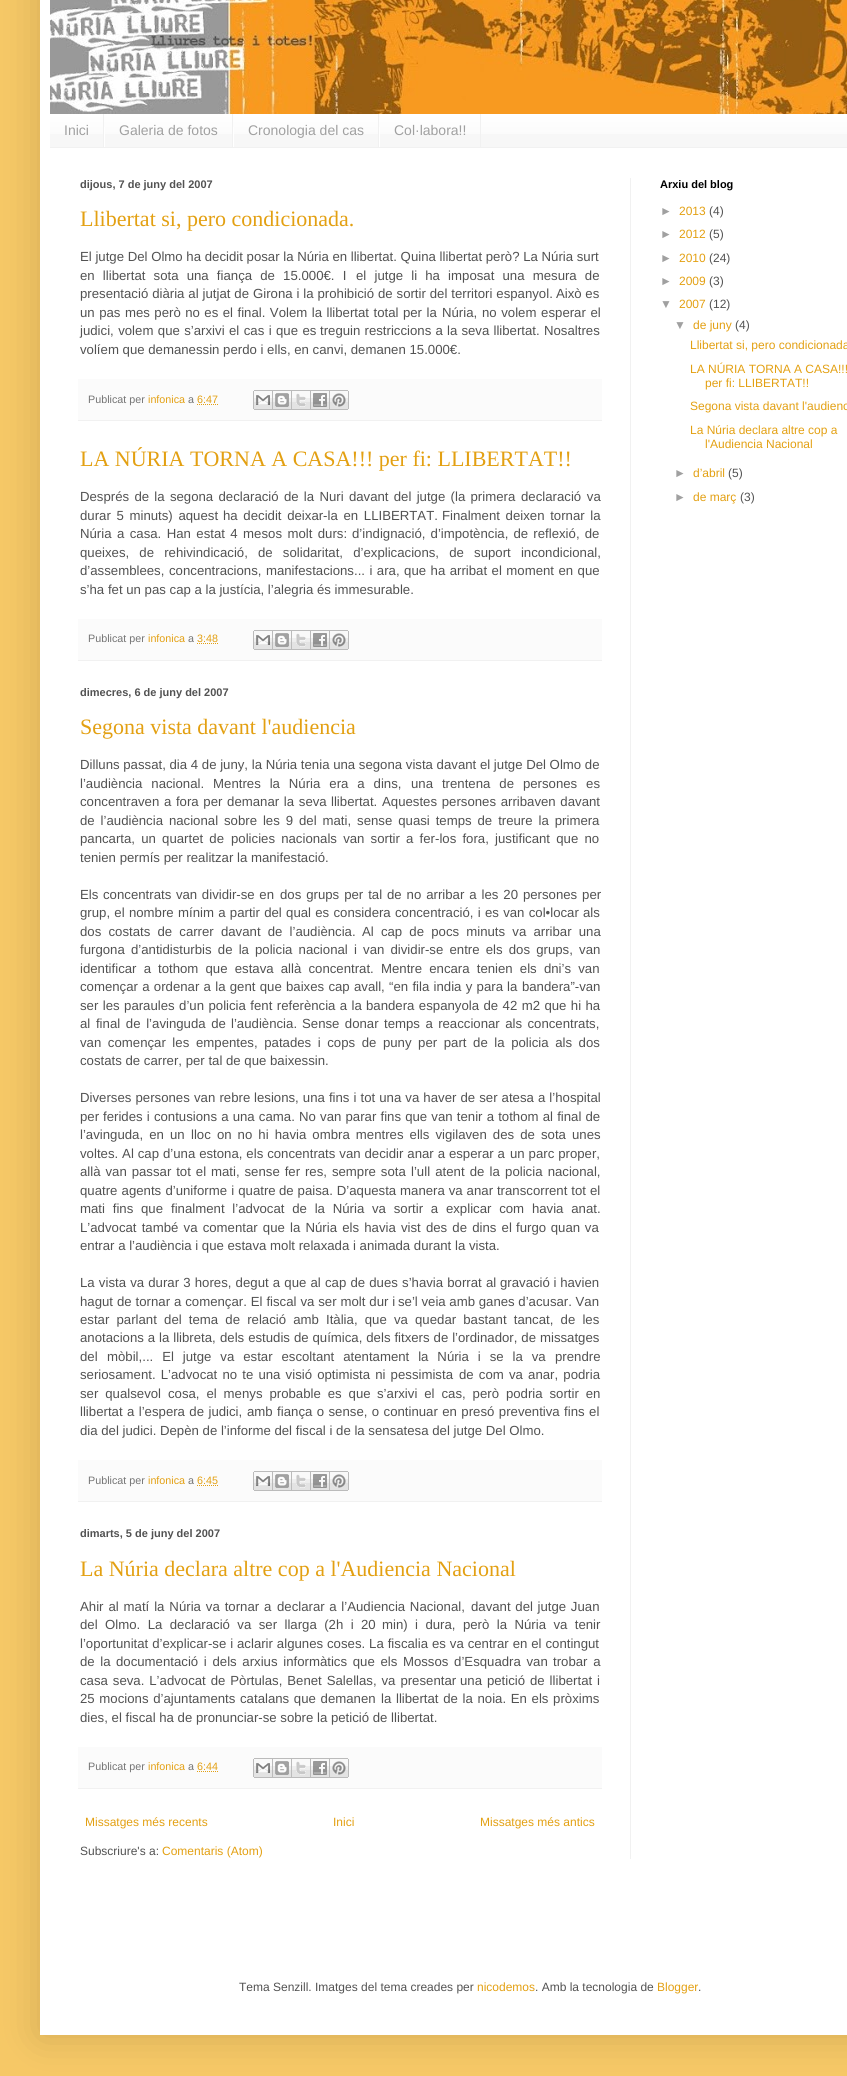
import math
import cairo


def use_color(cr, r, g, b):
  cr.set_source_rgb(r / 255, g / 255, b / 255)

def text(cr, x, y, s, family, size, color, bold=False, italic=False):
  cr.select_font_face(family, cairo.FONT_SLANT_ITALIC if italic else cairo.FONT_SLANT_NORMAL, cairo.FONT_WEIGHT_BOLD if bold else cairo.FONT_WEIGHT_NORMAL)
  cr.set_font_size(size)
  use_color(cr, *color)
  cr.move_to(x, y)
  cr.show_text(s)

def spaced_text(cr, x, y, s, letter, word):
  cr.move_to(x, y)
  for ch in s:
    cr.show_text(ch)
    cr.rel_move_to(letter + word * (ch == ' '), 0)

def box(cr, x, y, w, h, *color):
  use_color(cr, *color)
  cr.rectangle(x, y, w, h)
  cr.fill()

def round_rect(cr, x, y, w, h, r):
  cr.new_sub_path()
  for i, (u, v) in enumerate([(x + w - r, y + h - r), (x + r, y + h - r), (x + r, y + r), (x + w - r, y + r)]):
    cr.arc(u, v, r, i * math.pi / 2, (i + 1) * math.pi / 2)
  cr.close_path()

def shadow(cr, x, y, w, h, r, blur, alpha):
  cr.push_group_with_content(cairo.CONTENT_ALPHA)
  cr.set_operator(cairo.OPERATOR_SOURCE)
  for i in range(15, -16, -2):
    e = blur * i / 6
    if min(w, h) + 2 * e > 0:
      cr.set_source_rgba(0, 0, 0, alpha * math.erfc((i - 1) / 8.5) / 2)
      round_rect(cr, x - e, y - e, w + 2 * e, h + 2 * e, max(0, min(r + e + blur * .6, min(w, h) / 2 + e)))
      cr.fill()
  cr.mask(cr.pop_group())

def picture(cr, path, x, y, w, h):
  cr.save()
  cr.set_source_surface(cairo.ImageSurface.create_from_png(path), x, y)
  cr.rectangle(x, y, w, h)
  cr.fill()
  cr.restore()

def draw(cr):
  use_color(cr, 246, 200, 102)
  cr.paint()
  use_color(cr, 0, 0, 0)
  shadow(cr, 40, -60, 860, 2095, 0, 20, 0.15)
  box(cr, 40, 0, 807, 2035, 255, 255, 255)
  picture(cr, "img_01.png", 50, 0, 797, 114)
  box(cr, 50, 115, 797, 32, 247, 247, 247)
  picture(cr, "img_02.png", 50, 114, 797, 20)
  box(cr, 50, 147, 797, 1, 241, 241, 241)
  box(cr, 103, 114, 1, 33, 241, 241, 241)
  box(cr, 232, 114, 1, 33, 241, 241, 241)
  box(cr, 104, 127, 1, 20, 255, 255, 255)
  box(cr, 378, 114, 1, 33, 241, 241, 241)
  box(cr, 233, 127, 1, 20, 255, 255, 255)
  box(cr, 480, 114, 1, 33, 241, 241, 241)
  box(cr, 379, 127, 1, 20, 255, 255, 255)
  box(cr, 630, 178, 1, 1681, 241, 241, 241)
  box(cr, 78, 379, 524, 41, 251, 251, 251)
  box(cr, 78, 420, 524, 1, 241, 241, 241)
  cr.new_path()
  cr.move_to(197, 404.5)
  cr.line_to(218.5, 404.5)
  use_color(cr, 227, 160, 18)
  cr.set_line_width(1)
  cr.set_dash([1, 1])
  cr.stroke()
  picture(cr, "img_03.png", 253, 390, 20, 20)
  picture(cr, "img_04.png", 273, 390, 19, 20)
  picture(cr, "img_05.png", 292, 390, 19, 20)
  picture(cr, "img_06.png", 311, 390, 19, 20)
  picture(cr, "img_07.png", 330, 390, 19, 20)
  box(cr, 78, 619, 524, 41, 251, 251, 251)
  box(cr, 78, 660, 524, 1, 241, 241, 241)
  cr.new_path()
  cr.move_to(197, 643.5)
  cr.line_to(218.5, 643.5)
  use_color(cr, 227, 160, 18)
  cr.stroke()
  picture(cr, "img_03.png", 253, 630, 20, 20)
  picture(cr, "img_04.png", 273, 630, 19, 20)
  picture(cr, "img_05.png", 292, 630, 19, 20)
  picture(cr, "img_06.png", 311, 630, 19, 20)
  picture(cr, "img_07.png", 330, 630, 19, 20)
  box(cr, 78, 1460, 524, 41, 251, 251, 251)
  box(cr, 78, 1501, 524, 1, 241, 241, 241)
  cr.new_path()
  cr.move_to(197, 1485.5)
  cr.line_to(218.5, 1485.5)
  use_color(cr, 227, 160, 18)
  cr.stroke()
  picture(cr, "img_03.png", 253, 1471, 20, 20)
  picture(cr, "img_04.png", 273, 1471, 19, 20)
  picture(cr, "img_05.png", 292, 1471, 19, 20)
  picture(cr, "img_06.png", 311, 1471, 19, 20)
  picture(cr, "img_07.png", 330, 1471, 19, 20)
  box(cr, 78, 1747, 524, 41, 251, 251, 251)
  box(cr, 78, 1788, 524, 1, 241, 241, 241)
  cr.new_path()
  cr.move_to(197, 1771.5)
  cr.line_to(218.5, 1771.5)
  use_color(cr, 227, 160, 18)
  cr.stroke()
  picture(cr, "img_03.png", 253, 1758, 20, 20)
  picture(cr, "img_04.png", 273, 1758, 19, 20)
  picture(cr, "img_05.png", 292, 1758, 19, 20)
  picture(cr, "img_06.png", 311, 1758, 19, 20)
  picture(cr, "img_07.png", 330, 1758, 19, 20)
  text(cr, 64, 135, "Inici", "Liberation Sans", 14, (160, 160, 160))
  text(cr, 119, 135, "Galeria de fotos", "Liberation Sans", 14, (160, 160, 160))
  text(cr, 248, 135, "Cronologia del cas", "Liberation Sans", 14, (160, 160, 160))
  text(cr, 394, 135, "Col·labora!!", "Liberation Sans", 14, (160, 160, 160))
  text(cr, 80, 188, "dijous, 7 de juny del 2007", "Liberation Sans", 11, (82, 82, 82), bold=True)
  text(cr, 80, 226, "Llibertat si, pero condicionada.", "Liberation Serif", 22, (227, 160, 18))
  text(cr, 80, 261, "El jutge Del Olmo ha decidit posar la Núria en llibertat. Quina llibertat però? La Núria surt", "Liberation Sans", 13.2, (82, 82, 82))
  spaced_text(cr, 80, 280, "en llibertat sota una fiança de 15.000€. I", 0, 4.5)
  spaced_text(cr, 356, 280, "el jutge li ha imposat una mesura de", 0, 4.5)
  spaced_text(cr, 80, 298, "presentació diària al jutjat de Girona i la prohibició de sortir del territori espanyol.", 0, 0.25)
  text(cr, 556, 298, "Això es", "Liberation Sans", 13.2, (82, 82, 82))
  spaced_text(cr, 80, 317, "un pas mes però no es el final. Volem la llibertat total per la", 0, 0.8)
  spaced_text(cr, 442, 317, "Núria, no volem esperar el", 0, 1)
  spaced_text(cr, 80, 335, "judici, volem que s’arxivi el cas i que es", 0, 0.75)
  spaced_text(cr, 320, 335, "treguin restriccions a la seva llibertat.", 0, 0.5)
  text(cr, 544, 335, "Nosaltres", "Liberation Sans", 13.2, (82, 82, 82))
  text(cr, 80, 354, "volíem que demanessin perdo i ells, en canvi, demanen 15.000€.", "Liberation Sans", 13.2, (82, 82, 82))
  text(cr, 88, 403, "Publicat per", "Liberation Sans", 10.75, (116, 116, 116))
  text(cr, 148, 403, "infonica", "Liberation Sans", 10.75, (227, 160, 18))
  text(cr, 188, 403, "a", "Liberation Sans", 10.75, (116, 116, 116))
  text(cr, 197, 403, "6:47", "Liberation Sans", 10.75, (227, 160, 18))
  text(cr, 80, 466, "LA NÚRIA TORNA A CASA!!! per fi: LLIBERTAT!!", "Liberation Serif", 22, (227, 160, 18))
  cr.select_font_face("Liberation Sans")
  cr.set_font_size(13.2)
  use_color(cr, 82, 82, 82)
  spaced_text(cr, 80, 501, "Després de la segona declaració de la Nuri davant del jutge (la primera", 0, 1.6)
  spaced_text(cr, 521, 501, "declaració va", 0, 2)
  spaced_text(cr, 80, 520, "durar 5 minuts) aquest", 0, 2)
  spaced_text(cr, 223, 520, "ha decidit deixar-la en LLIBERTAT.", 0, 2)
  spaced_text(cr, 442, 520, "Finalment deixen tornar la", 0, 2)
  spaced_text(cr, 80, 538, "Núria a casa. Han estat 4 mesos molt durs:", 0, 1.75)
  spaced_text(cr, 352, 538, "d’indignació, d’impotència, de reflexió, de", 0, 1.5)
  spaced_text(cr, 80, 557, "queixes, de rehivindicació,", 0, 6.5)
  spaced_text(cr, 258, 557, "de solidaritat, d’explicacions, de suport incondicional,", 0, 6.5)
  text(cr, 80, 575, "d’assemblees,", "Liberation Sans", 13.2, (82, 82, 82))
  spaced_text(cr, 169, 575, "concentracions, manifestacions... i ara, que ha arribat el moment en que", 0, 0.8)
  text(cr, 80, 594, "s’ha fet un pas cap a la justícia, l’alegria és immesurable.", "Liberation Sans", 13.2, (82, 82, 82))
  text(cr, 88, 642, "Publicat per", "Liberation Sans", 10.75, (116, 116, 116))
  text(cr, 148, 642, "infonica", "Liberation Sans", 10.75, (227, 160, 18))
  text(cr, 188, 642, "a", "Liberation Sans", 10.75, (116, 116, 116))
  text(cr, 197, 642, "3:48", "Liberation Sans", 10.75, (227, 160, 18))
  text(cr, 80, 696, "dimecres, 6 de juny del 2007", "Liberation Sans", 11, (82, 82, 82), bold=True)
  text(cr, 80, 734, "Segona vista davant l'audiencia", "Liberation Serif", 22, (227, 160, 18))
  text(cr, 80, 769, "Dilluns passat, dia 4 de juny, la Núria tenia una segona vista davant el jutge Del Olmo de", "Liberation Sans", 13.2, (82, 82, 82))
  spaced_text(cr, 80, 788, "l’audiència nacional. Mentres la Núria era a dins,", 0, 5.25)
  spaced_text(cr, 411, 788, "una trentena de persones es", 0, 5.25)
  spaced_text(cr, 80, 806, "concentraven a fora per demanar la seva", 0, 1)
  text(cr, 331, 806, "llibertat.", "Liberation Sans", 13.2, (82, 82, 82))
  spaced_text(cr, 382, 806, "Aquestes persones arribaven davant", 0, 1)
  spaced_text(cr, 80, 825, "de l’audiència nacional sobre les 9", 0, 2.25)
  spaced_text(cr, 299, 825, "del mati, sense quasi temps de treure la primera", 0, 2.25)
  spaced_text(cr, 80, 843, "pancarta, un quartet de", 0, 2.5)
  spaced_text(cr, 231, 843, "policies nacionals van sortir a fer-los fora, justificant que no", 0, 2.5)
  text(cr, 80, 862, "tenien permís per realitzar la manifestació.", "Liberation Sans", 13.2, (82, 82, 82))
  spaced_text(cr, 80, 899, "Els concentrats van dividir-se en", 0, 1)
  spaced_text(cr, 280, 899, "dos grups per tal de no arribar a les 20 persones per", 0, 1.25)
  spaced_text(cr, 80, 917, "grup, el nombre", 0, 0.6)
  spaced_text(cr, 178, 917, "mínim a partir del qual es considera concentració, i es van col•locar", 0, 0.6)
  text(cr, 583, 917, "als", "Liberation Sans", 13.2, (82, 82, 82))
  spaced_text(cr, 80, 936, "dos costats de carrer davant de l’audiència.", 0, 3.5)
  spaced_text(cr, 362, 936, "Al cap de pocs minuts va arribar una", 0, 3.5)
  spaced_text(cr, 80, 954, "furgona d’antidisturbis de la", 0, 2.5)
  spaced_text(cr, 255, 954, "policia nacional i van dividir-se entre els dos grups, van", 0, 2.5)
  spaced_text(cr, 80, 973, "identificar a", 0, 3.5)
  spaced_text(cr, 158, 973, "tothom que estava allà concentrat. Mentre encara tenien els dni’s van", 0, 3.5)
  spaced_text(cr, 80, 991, "començar a ordenar a la gent que baixes cap avall, “en fila india y para", 0, 0.6)
  spaced_text(cr, 507, 991, "la bandera”-van", 0, 1)
  spaced_text(cr, 80, 1010, "ser les paraules d’un policia fent referència a la", 0, 0.75)
  spaced_text(cr, 366, 1010, "bandera espanyola de 42 m2 que hi ha", 0, 0.75)
  spaced_text(cr, 80, 1028, "al final de l’avinguda de", 0, 2)
  text(cr, 231, 1028, "l’audiència.", "Liberation Sans", 13.2, (82, 82, 82))
  spaced_text(cr, 302, 1028, "Sense donar temps a reaccionar als concentrats,", 0, 1.75)
  spaced_text(cr, 80, 1047, "van començar les", 0, 2.9)
  spaced_text(cr, 196, 1047, "empentes, patades i cops de puny per part de la policia als dos", 0, 2.9)
  text(cr, 80, 1065, "costats de carrer, per tal de que baixessin.", "Liberation Sans", 13.2, (82, 82, 82))
  spaced_text(cr, 80, 1102, "Diverses persones van rebre", 0, 0.5)
  spaced_text(cr, 254, 1102, "lesions, una fins i tot una va haver de ser atesa a l’hospital", 0, 0.4)
  text(cr, 80, 1121, "per", "Liberation Sans", 13.2, (82, 82, 82))
  spaced_text(cr, 103, 1121, "ferides i contusions a una cama.", 0, 0.5)
  spaced_text(cr, 299, 1121, "No van parar fins que van tenir a tothom al final de", 0, 0.5)
  spaced_text(cr, 80, 1139, "l’avinguda, en un", 0, 2.4)
  spaced_text(cr, 191, 1139, "lloc on no hi havia ombra mentres ells vigilaven des de sota unes", 0, 2.4)
  spaced_text(cr, 80, 1158, "voltes. Al cap d’una estona, els concentrats van decidir anar a esperar a", 0, 0.25)
  spaced_text(cr, 510, 1158, "un parc proper,", 0, 0.25)
  spaced_text(cr, 80, 1176, "allà van passar tot el mati, sense fer res, sempre sota", 0, 1.25)
  spaced_text(cr, 411, 1176, "l’ull atent de la policia nacional,", 0, 1.5)
  spaced_text(cr, 80, 1195, "quatre agents d’uniforme i quatre", 0, 0.5)
  spaced_text(cr, 279, 1195, "de paisa. D’aquesta manera va anar transcorrent tot el", 0, 0.25)
  spaced_text(cr, 80, 1213, "mati fins que", 0, 4.1)
  spaced_text(cr, 171, 1213, "finalment l’advocat de la Núria va sortir a explicar com havia anat.", 0, 4.1)
  spaced_text(cr, 80, 1232, "L’advocat també va comentar que la Núria els havia vist des de dins el", 0, 1.5)
  spaced_text(cr, 516, 1232, "furgo quan va", 0, 1)
  text(cr, 80, 1250, "entrar a l’audiència i que estava molt relaxada i animada durant la vista.", "Liberation Sans", 13.2, (82, 82, 82))
  spaced_text(cr, 80, 1287, "La vista va durar 3 hores, degut a que al cap de dues s’havia borrat al", 0, 0.5)
  text(cr, 500, 1287, "gravació i havien", "Liberation Sans", 13.2, (82, 82, 82))
  spaced_text(cr, 80, 1306, "hagut de tornar a començar. El fiscal va ser molt dur i", 0, 0.25)
  text(cr, 398, 1306, "se’l veia amb ganes d’acusar. Van", "Liberation Sans", 13.2, (82, 82, 82))
  spaced_text(cr, 80, 1324, "estar parlant del tema de relació amb", 0, 3.5)
  spaced_text(cr, 326, 1324, "Itàlia, que va quedar bastant tancat, de les", 0, 3.5)
  spaced_text(cr, 80, 1342, "anotacions a la llibreta,", 0, 0.25)
  spaced_text(cr, 220, 1342, "dels estudis de química, dels fitxers de l’ordinador, de missatges", 0, 0.25)
  text(cr, 80, 1361, "del", "Liberation Sans", 13.2, (82, 82, 82))
  spaced_text(cr, 107, 1361, "mòbil,... El jutge va estar escoltant atentament la Núria i se la va", 0, 5.25)
  text(cr, 555, 1361, "prendre", "Liberation Sans", 13.2, (82, 82, 82))
  spaced_text(cr, 80, 1379, "seriosament. L’advocat no te una visió optimista ni pessimista", 0, 1.5)
  spaced_text(cr, 459, 1379, "de com va anar, podria", 0, 1.5)
  spaced_text(cr, 80, 1398, "ser qualsevol cosa, el menys probable es que", 0, 3.25)
  spaced_text(cr, 377, 1398, "s’arxivi el cas, però podria sortir en", 0, 3.25)
  spaced_text(cr, 80, 1416, "llibertat a l’espera de judici,", 0, 0.75)
  spaced_text(cr, 247, 1416, "amb fiança o sense, o continuar en presó preventiva fins el", 0, 0.75)
  text(cr, 80, 1435, "dia del judici. Depèn de l’informe del fiscal i de la sensatesa del jutge Del Olmo.", "Liberation Sans", 13.2, (82, 82, 82))
  text(cr, 88, 1484, "Publicat per", "Liberation Sans", 10.75, (116, 116, 116))
  text(cr, 148, 1484, "infonica", "Liberation Sans", 10.75, (227, 160, 18))
  text(cr, 188, 1484, "a", "Liberation Sans", 10.75, (116, 116, 116))
  text(cr, 197, 1484, "6:45", "Liberation Sans", 10.75, (227, 160, 18))
  text(cr, 80, 1537, "dimarts, 5 de juny del 2007", "Liberation Sans", 11, (82, 82, 82), bold=True)
  text(cr, 80, 1576, "La Núria declara altre cop a l'Audiencia Nacional", "Liberation Serif", 22, (227, 160, 18))
  cr.select_font_face("Liberation Sans")
  cr.set_font_size(13.2)
  use_color(cr, 82, 82, 82)
  spaced_text(cr, 80, 1611, "Ahir al matí la Núria va tornar a", 0, 1.25)
  spaced_text(cr, 277, 1611, "declarar a l’Audiencia Nacional,", 0, 1)
  spaced_text(cr, 471, 1611, "davant del jutge Juan", 0, 1)
  spaced_text(cr, 80, 1629, "del Olmo. La declaració va ser llarga (2h i 20", 0, 3.75)
  spaced_text(cr, 382, 1629, "min) i dura, però la Núria va tenir", 0, 3.75)
  spaced_text(cr, 80, 1648, "l’oportunitat d’explicar-se i", 0, 0.25)
  spaced_text(cr, 237, 1648, "aclarir algunes coses. La fiscalia es va centrar en el contingut", 0, 0.25)
  spaced_text(cr, 80, 1666, "de la", 0, 2)
  spaced_text(cr, 116, 1666, "documentació i dels arxius informàtics que els Mossos d’Esquadra van", 0, 2)
  spaced_text(cr, 553, 1666, "trobar a", 0, 2)
  spaced_text(cr, 80, 1685, "casa seva. L’advocat de Pòrtulas, Benet Salellas, va presentar", 0, 1.25)
  spaced_text(cr, 460, 1685, "una petició de llibertat i", 0, 1.25)
  spaced_text(cr, 80, 1703, "25 mocions d’ajuntaments catalans que demanen", 0, 1)
  spaced_text(cr, 381, 1703, "la llibertat de la noia. En els pròxims", 0, 1)
  text(cr, 80, 1722, "dies, el fiscal ha de pronunciar-se sobre la petició de llibertat.", "Liberation Sans", 13.2, (82, 82, 82))
  text(cr, 88, 1770, "Publicat per", "Liberation Sans", 10.75, (116, 116, 116))
  text(cr, 148, 1770, "infonica", "Liberation Sans", 10.75, (227, 160, 18))
  text(cr, 188, 1770, "a", "Liberation Sans", 10.75, (116, 116, 116))
  text(cr, 197, 1770, "6:44", "Liberation Sans", 10.75, (227, 160, 18))
  text(cr, 85, 1826, "Missatges més recents", "Liberation Sans", 12, (227, 160, 18))
  text(cr, 333, 1826, "Inici", "Liberation Sans", 12, (227, 160, 18))
  text(cr, 480, 1826, "Missatges més antics", "Liberation Sans", 12, (227, 160, 18))
  text(cr, 80, 1855, "Subscriure's a:", "Liberation Sans", 12, (82, 82, 82))
  text(cr, 162, 1855, "Comentaris (Atom)", "Liberation Sans", 12, (227, 160, 18))
  text(cr, 660, 188, "Arxiu del blog", "Liberation Sans", 11, (0, 0, 0), bold=True)
  text(cr, 660, 215, "►", "Liberation Sans", 12, (160, 160, 160))
  text(cr, 679, 215, "2013", "Liberation Sans", 12, (227, 160, 18))
  text(cr, 709, 215, "(4)", "Liberation Sans", 12, (82, 82, 82))
  text(cr, 660, 238, "►", "Liberation Sans", 12, (160, 160, 160))
  text(cr, 679, 238, "2012", "Liberation Sans", 12, (227, 160, 18))
  text(cr, 709, 238, "(5)", "Liberation Sans", 12, (82, 82, 82))
  text(cr, 660, 262, "►", "Liberation Sans", 12, (160, 160, 160))
  text(cr, 679, 262, "2010", "Liberation Sans", 12, (227, 160, 18))
  text(cr, 709, 262, "(24)", "Liberation Sans", 12, (82, 82, 82))
  text(cr, 660, 285, "►", "Liberation Sans", 12, (160, 160, 160))
  text(cr, 679, 285, "2009", "Liberation Sans", 12, (227, 160, 18))
  text(cr, 709, 285, "(3)", "Liberation Sans", 12, (82, 82, 82))
  text(cr, 660, 308, "▼", "Liberation Sans", 12, (160, 160, 160))
  text(cr, 679, 308, "2007", "Liberation Sans", 12, (227, 160, 18))
  text(cr, 709, 308, "(12)", "Liberation Sans", 12, (82, 82, 82))
  text(cr, 674, 329, "▼", "Liberation Sans", 12, (160, 160, 160))
  text(cr, 693, 329, "de juny", "Liberation Sans", 12, (227, 160, 18))
  text(cr, 735, 329, "(4)", "Liberation Sans", 12, (82, 82, 82))
  text(cr, 690, 349, "Llibertat si, pero condicionada", "Liberation Sans", 12, (227, 160, 18))
  text(cr, 690, 373, "LA NÚRIA TORNA A CASA!!!", "Liberation Sans", 12, (227, 160, 18))
  text(cr, 705, 387, "per fi: LLIBERTAT!!", "Liberation Sans", 12, (227, 160, 18))
  text(cr, 690, 410, "Segona vista davant l'audienc", "Liberation Sans", 12, (227, 160, 18))
  text(cr, 690, 434, "La Núria declara altre cop a", "Liberation Sans", 12, (227, 160, 18))
  text(cr, 705, 448, "l'Audiencia Nacional", "Liberation Sans", 12, (227, 160, 18))
  text(cr, 674, 477, "►", "Liberation Sans", 12, (160, 160, 160))
  text(cr, 693, 477, "d’abril", "Liberation Sans", 12, (227, 160, 18))
  text(cr, 728, 477, "(5)", "Liberation Sans", 12, (82, 82, 82))
  text(cr, 674, 501, "►", "Liberation Sans", 12, (160, 160, 160))
  text(cr, 693, 501, "de març", "Liberation Sans", 12, (227, 160, 18))
  text(cr, 740, 501, "(3)", "Liberation Sans", 12, (82, 82, 82))
  text(cr, 239, 1991, "Tema Senzill. Imatges del tema creades per", "Liberation Sans", 12, (82, 82, 82))
  text(cr, 477, 1991, "nicodemos", "Liberation Sans", 12, (227, 160, 18))
  text(cr, 535, 1991, ". Amb la tecnologia de", "Liberation Sans", 12, (82, 82, 82))
  text(cr, 657, 1991, "Blogger", "Liberation Sans", 12, (227, 160, 18))
  text(cr, 698, 1991, ".", "Liberation Sans", 12, (82, 82, 82))


surface = cairo.ImageSurface(cairo.FORMAT_RGB24, 847, 2076)
cr = cairo.Context(surface)
options = cairo.FontOptions()
options.set_hint_metrics(cairo.HINT_METRICS_OFF)
options.set_hint_style(cairo.HINT_STYLE_NONE)
cr.set_font_options(options)
cr.set_miter_limit(4)
draw(cr)
surface.write_to_png("out.png")
